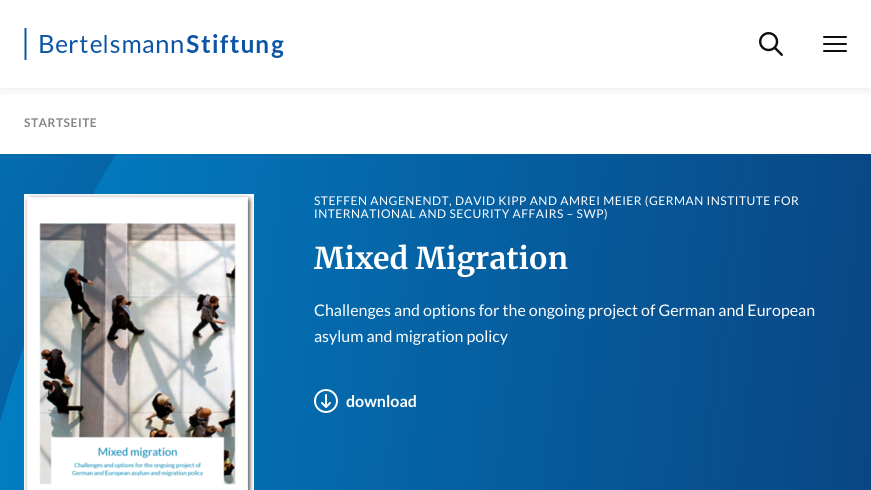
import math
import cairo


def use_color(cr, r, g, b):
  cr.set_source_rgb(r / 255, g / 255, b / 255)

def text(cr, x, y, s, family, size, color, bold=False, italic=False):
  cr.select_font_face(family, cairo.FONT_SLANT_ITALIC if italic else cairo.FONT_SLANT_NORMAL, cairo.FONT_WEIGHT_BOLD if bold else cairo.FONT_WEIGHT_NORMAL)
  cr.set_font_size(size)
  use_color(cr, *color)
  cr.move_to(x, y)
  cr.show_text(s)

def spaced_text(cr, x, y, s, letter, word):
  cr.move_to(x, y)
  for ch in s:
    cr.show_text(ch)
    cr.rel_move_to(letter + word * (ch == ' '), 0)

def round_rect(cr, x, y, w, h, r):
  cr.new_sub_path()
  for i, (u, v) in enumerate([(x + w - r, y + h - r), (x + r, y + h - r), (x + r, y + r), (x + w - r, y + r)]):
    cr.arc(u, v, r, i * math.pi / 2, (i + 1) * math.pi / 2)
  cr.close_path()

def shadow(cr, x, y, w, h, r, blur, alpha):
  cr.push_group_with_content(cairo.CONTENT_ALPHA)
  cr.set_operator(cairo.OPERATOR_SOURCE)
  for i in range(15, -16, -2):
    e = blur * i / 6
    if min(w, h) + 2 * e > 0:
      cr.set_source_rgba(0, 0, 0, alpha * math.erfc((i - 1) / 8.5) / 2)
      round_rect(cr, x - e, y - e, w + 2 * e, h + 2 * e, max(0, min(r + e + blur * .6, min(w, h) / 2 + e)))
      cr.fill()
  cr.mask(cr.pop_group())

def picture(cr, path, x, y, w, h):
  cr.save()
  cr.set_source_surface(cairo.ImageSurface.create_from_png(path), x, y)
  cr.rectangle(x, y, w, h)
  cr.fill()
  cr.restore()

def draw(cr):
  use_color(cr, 255, 255, 255)
  cr.paint()
  cr.save()
  cr.rectangle(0, 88, 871, 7)
  cr.clip()
  use_color(cr, 0, 0, 0)
  shadow(cr, 0, 2, 871, 88, 0, 7.5, 0.08)
  cr.restore()
  picture(cr, "img_01.png", 24, 28, 260, 32)
  picture(cr, "img_02.png", 759, 32, 24, 24)
  use_color(cr, 14, 14, 14)
  round_rect(cr, 823, 36, 24, 2, 1)
  cr.fill()
  round_rect(cr, 823, 43, 24, 2, 1)
  cr.fill()
  round_rect(cr, 823, 50, 24, 2, 1)
  cr.fill()
  gradient = cairo.LinearGradient(-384, 349, 226, 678)
  gradient.add_color_stop_rgba(0, 0.004, 0.518, 0.792, 1)
  gradient.add_color_stop_rgba(1, 0.035, 0.271, 0.514, 1)
  cr.set_source(gradient)
  cr.rectangle(0, 154, 116, 268)
  cr.fill()
  cr.save()
  cr.rectangle(0, 154, 871, 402)
  cr.clip()
  gradient = cairo.LinearGradient(-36, -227, 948, -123)
  gradient.add_color_stop_rgba(0, 0.004, 0.518, 0.792, 1)
  gradient.add_color_stop_rgba(1, 0.035, 0.271, 0.514, 1)
  cr.set_source(gradient)
  cr.arc(989.5, 690.5, 1025, 0, 2 * math.pi)
  cr.fill()
  cr.restore()
  picture(cr, "img_03.png", 24, 194, 230, 296)
  picture(cr, "img_04.png", 314, 389, 24, 24)
  cr.select_font_face("Lato", cairo.FONT_SLANT_NORMAL, cairo.FONT_WEIGHT_BOLD)
  cr.set_font_size(12)
  use_color(cr, 134, 134, 134)
  spaced_text(cr, 24, 127, "STARTSEITE", 0.5, 0)
  cr.select_font_face("Lato")
  use_color(cr, 255, 255, 255)
  spaced_text(cr, 314, 205, "STEFFEN ANGENENDT, DAVID KIPP AND AMREI MEIER (GERMAN INSTITUTE FOR", 0.5, 0)
  spaced_text(cr, 314, 218, "INTERNATIONAL AND SECURITY AFFAIRS – SWP)", 0.5, 0)
  text(cr, 314, 269, "Mixed Migration", "Merriweather", 30, (255, 255, 255), bold=True)
  text(cr, 314, 316, "Challenges and options for the ongoing project of German and European", "Lato", 16, (255, 255, 255))
  text(cr, 314, 342, "asylum and migration policy", "Lato", 16, (255, 255, 255))
  text(cr, 346, 407, "download", "Lato", 16, (255, 255, 255), bold=True)


surface = cairo.ImageSurface(cairo.FORMAT_RGB24, 871, 490)
cr = cairo.Context(surface)
options = cairo.FontOptions()
options.set_hint_metrics(cairo.HINT_METRICS_OFF)
options.set_hint_style(cairo.HINT_STYLE_NONE)
cr.set_font_options(options)
cr.set_miter_limit(4)
draw(cr)
surface.write_to_png("out.png")
